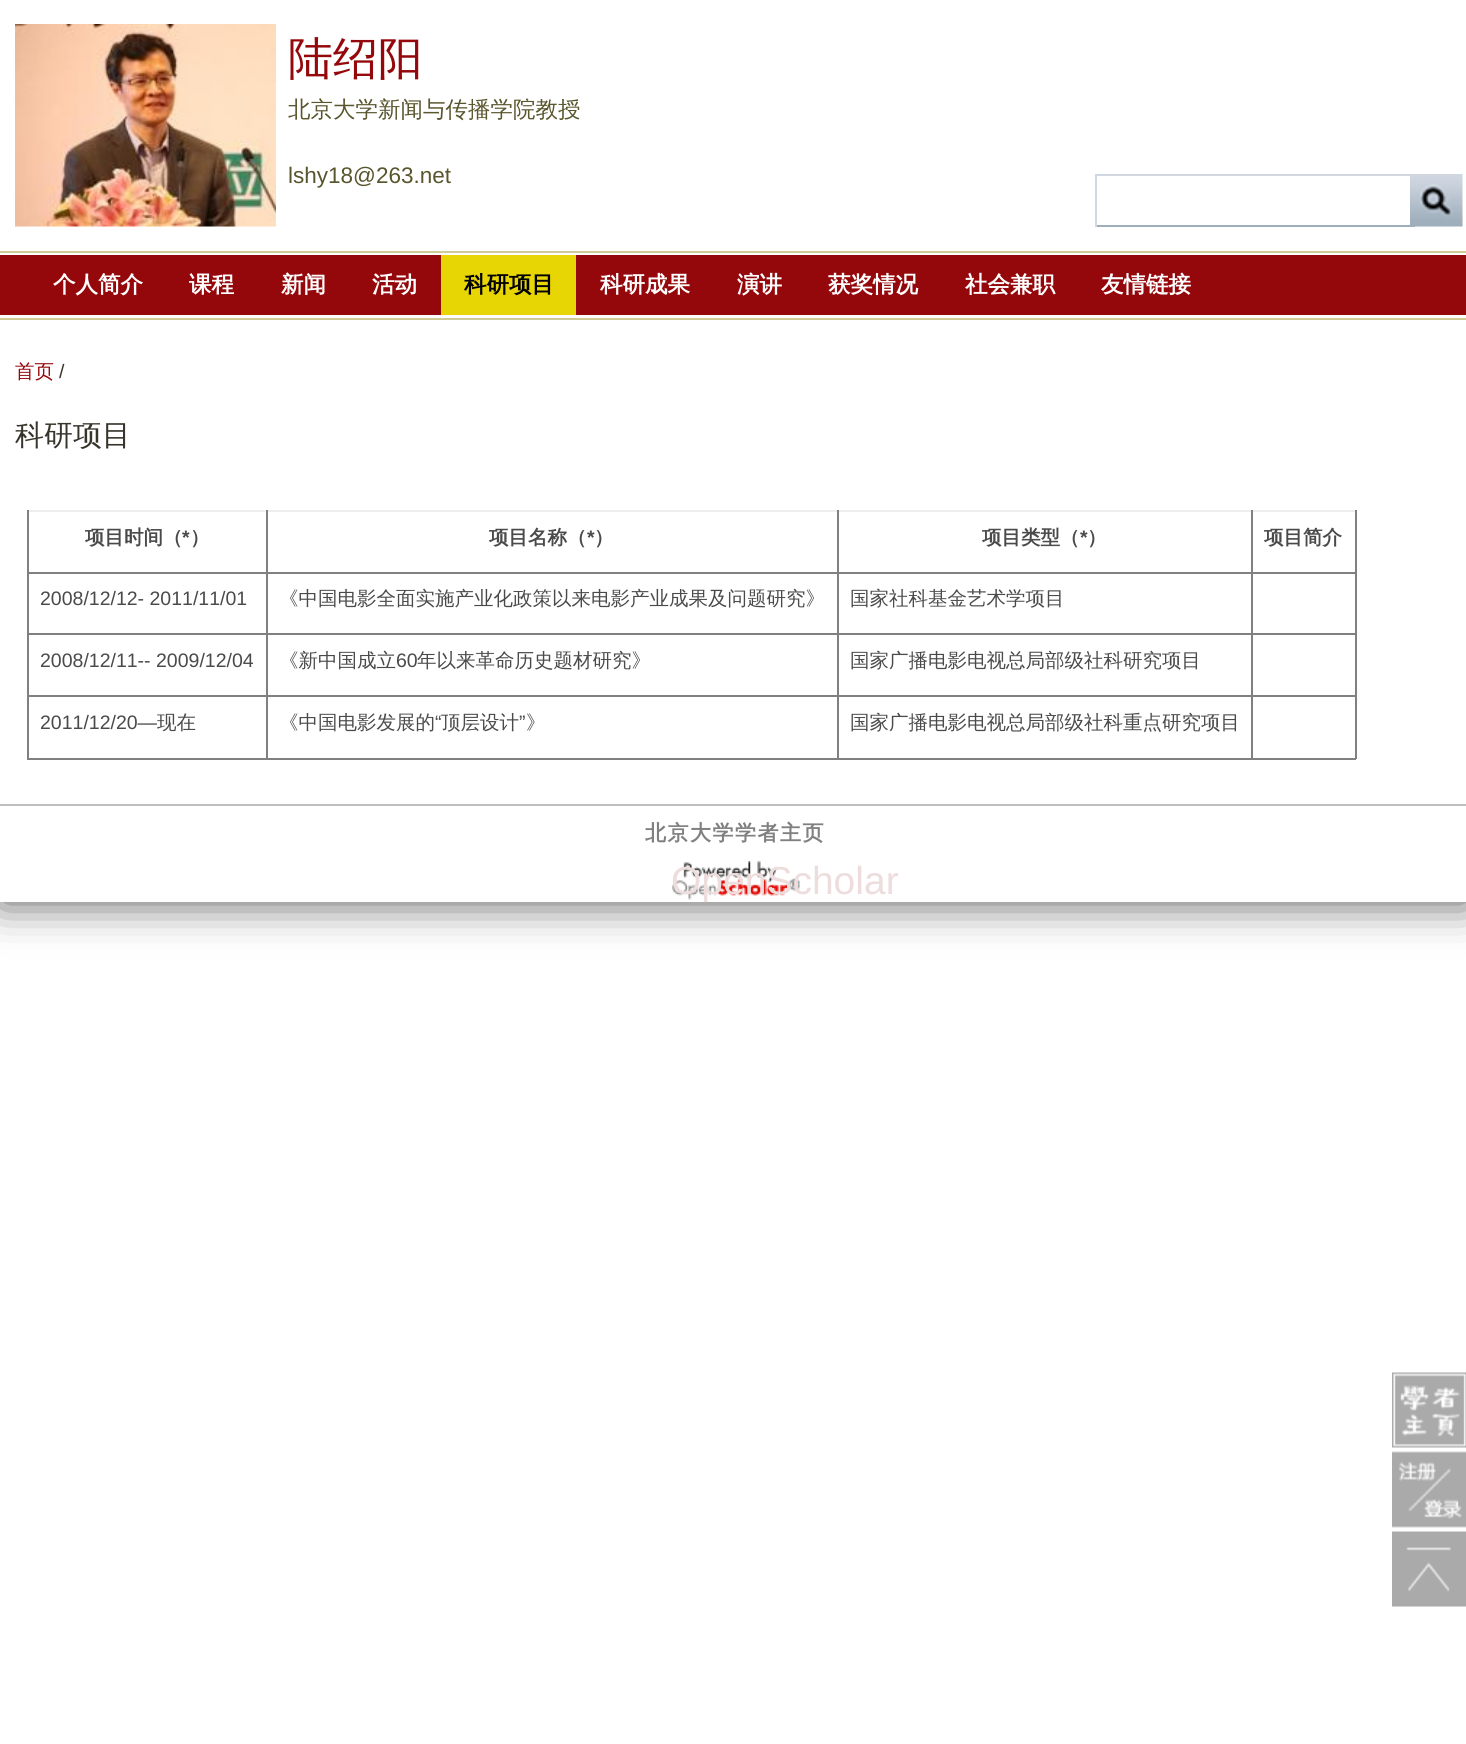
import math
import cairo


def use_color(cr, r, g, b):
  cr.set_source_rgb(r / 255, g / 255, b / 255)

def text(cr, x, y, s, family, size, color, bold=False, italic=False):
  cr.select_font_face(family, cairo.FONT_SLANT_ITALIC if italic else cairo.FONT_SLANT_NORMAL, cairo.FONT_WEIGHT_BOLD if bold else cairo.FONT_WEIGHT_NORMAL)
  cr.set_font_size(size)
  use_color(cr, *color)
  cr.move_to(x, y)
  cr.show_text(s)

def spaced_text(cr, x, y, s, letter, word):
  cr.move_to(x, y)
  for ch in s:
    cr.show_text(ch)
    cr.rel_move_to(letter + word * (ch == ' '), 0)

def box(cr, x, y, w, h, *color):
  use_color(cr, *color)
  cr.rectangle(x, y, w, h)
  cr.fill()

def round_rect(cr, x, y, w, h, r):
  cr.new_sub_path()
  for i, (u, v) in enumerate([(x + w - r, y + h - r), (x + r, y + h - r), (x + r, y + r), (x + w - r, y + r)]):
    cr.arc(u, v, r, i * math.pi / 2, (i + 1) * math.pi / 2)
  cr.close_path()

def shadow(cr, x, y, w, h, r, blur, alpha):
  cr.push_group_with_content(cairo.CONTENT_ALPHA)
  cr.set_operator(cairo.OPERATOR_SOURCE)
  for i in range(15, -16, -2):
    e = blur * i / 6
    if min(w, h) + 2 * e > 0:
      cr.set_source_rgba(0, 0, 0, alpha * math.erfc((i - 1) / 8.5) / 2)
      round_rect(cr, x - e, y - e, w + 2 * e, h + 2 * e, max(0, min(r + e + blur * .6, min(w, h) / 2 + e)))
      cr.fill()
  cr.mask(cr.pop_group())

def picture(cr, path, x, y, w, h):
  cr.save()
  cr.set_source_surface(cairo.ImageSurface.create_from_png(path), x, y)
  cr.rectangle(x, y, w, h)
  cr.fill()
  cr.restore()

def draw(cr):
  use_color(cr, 255, 255, 255)
  cr.paint()
  use_color(cr, 85, 85, 85)
  shadow(cr, 0, 0, 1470, 902, 0, 22.5, 1)
  box(cr, 0, 0, 1466, 902, 255, 255, 255)
  picture(cr, "img_01.png", 15, 24, 261, 203)
  box(cr, 1095, 174, 320, 2, 208, 215, 225)
  box(cr, 1095, 225, 320, 2, 158, 174, 187)
  box(cr, 1095, 174, 2, 53, 208, 215, 225)
  picture(cr, "img_02.png", 1410, 174, 53, 53)
  box(cr, 0, 251, 1466, 2, 208, 203, 149)
  box(cr, 0, 318, 1466, 2, 208, 203, 149)
  box(cr, 0, 255, 1466, 60, 148, 7, 10)
  box(cr, 441, 255, 135, 60, 231, 213, 4)
  box(cr, 27, 758, 1329, 2, 128, 128, 128)
  box(cr, 27, 510, 1329, 2, 238, 238, 238)
  box(cr, 1355, 572, 2, 187, 128, 128, 128)
  box(cr, 1355, 510, 2, 63, 128, 128, 128)
  box(cr, 1251, 695, 2, 64, 128, 128, 128)
  box(cr, 1251, 695, 105, 2, 128, 128, 128)
  box(cr, 1251, 633, 2, 63, 128, 128, 128)
  box(cr, 1251, 633, 105, 2, 128, 128, 128)
  box(cr, 1251, 572, 2, 63, 128, 128, 128)
  box(cr, 1251, 572, 105, 2, 128, 128, 128)
  box(cr, 1251, 510, 2, 63, 128, 128, 128)
  box(cr, 837, 695, 2, 64, 128, 128, 128)
  box(cr, 837, 695, 416, 2, 128, 128, 128)
  box(cr, 837, 633, 2, 63, 128, 128, 128)
  box(cr, 837, 633, 416, 2, 128, 128, 128)
  box(cr, 837, 572, 2, 63, 128, 128, 128)
  box(cr, 837, 572, 416, 2, 128, 128, 128)
  box(cr, 837, 510, 2, 63, 128, 128, 128)
  box(cr, 266, 695, 2, 64, 128, 128, 128)
  box(cr, 266, 695, 573, 2, 128, 128, 128)
  box(cr, 266, 633, 2, 63, 128, 128, 128)
  box(cr, 266, 633, 573, 2, 128, 128, 128)
  box(cr, 266, 572, 2, 63, 128, 128, 128)
  box(cr, 266, 572, 573, 2, 128, 128, 128)
  box(cr, 266, 510, 2, 63, 128, 128, 128)
  box(cr, 27, 695, 2, 64, 128, 128, 128)
  box(cr, 27, 695, 240, 2, 128, 128, 128)
  box(cr, 27, 633, 2, 63, 128, 128, 128)
  box(cr, 27, 633, 240, 2, 128, 128, 128)
  box(cr, 27, 572, 2, 63, 128, 128, 128)
  box(cr, 27, 572, 240, 2, 128, 128, 128)
  box(cr, 27, 510, 2, 63, 128, 128, 128)
  box(cr, 0, 804, 1466, 2, 191, 189, 189)
  picture(cr, "img_03.png", 672, 861, 128, 39)
  picture(cr, "img_04.png", 1392, 1372, 74, 76)
  picture(cr, "img_05.png", 1392, 1451, 74, 77)
  picture(cr, "img_06.png", 1392, 1531, 74, 76)
  text(cr, 288, 74, "陆绍阳", "WenQuanYi Zen Hei Medium", 45, (148, 7, 10))
  text(cr, 288, 117, "北京大学新闻与传播学院教授", "WenQuanYi Zen Hei Medium", 22.5, (89, 85, 45))
  text(cr, 288, 183, "lshy18@263.net", "Liberation Sans", 22.5, (89, 85, 45))
  text(cr, 53, 292, "个人简介", "WenQuanYi Zen Hei", 22.5, (255, 255, 255), bold=True)
  text(cr, 189, 292, "课程", "WenQuanYi Zen Hei", 22.5, (255, 255, 255), bold=True)
  text(cr, 281, 292, "新闻", "WenQuanYi Zen Hei", 22.5, (255, 255, 255), bold=True)
  text(cr, 372, 292, "活动", "WenQuanYi Zen Hei", 22.5, (255, 255, 255), bold=True)
  text(cr, 464, 292, "科研项目", "WenQuanYi Zen Hei", 22.5, (0, 0, 0), bold=True)
  text(cr, 600, 292, "科研成果", "WenQuanYi Zen Hei", 22.5, (255, 255, 255), bold=True)
  text(cr, 737, 292, "演讲", "WenQuanYi Zen Hei", 22.5, (255, 255, 255), bold=True)
  text(cr, 828, 292, "获奖情况", "WenQuanYi Zen Hei", 22.5, (255, 255, 255), bold=True)
  text(cr, 965, 292, "社会兼职", "WenQuanYi Zen Hei", 22.5, (255, 255, 255), bold=True)
  text(cr, 1101, 292, "友情链接", "WenQuanYi Zen Hei", 22.5, (255, 255, 255), bold=True)
  text(cr, 15, 378, "首页", "WenQuanYi Zen Hei Medium", 19.5, (148, 7, 10))
  text(cr, 59, 378, "/", "Liberation Sans", 19.5, (55, 53, 43))
  text(cr, 15, 445, "科研项目", "WenQuanYi Zen Hei Medium", 29, (55, 53, 43))
  text(cr, 85, 544, "项目时间（", "WenQuanYi Zen Hei", 19.5, (74, 74, 74), bold=True)
  text(cr, 182, 544, "*", "Liberation Sans", 19.5, (74, 74, 74), bold=True)
  text(cr, 190, 544, "）", "WenQuanYi Zen Hei", 19.5, (74, 74, 74), bold=True)
  text(cr, 489, 544, "项目名称（", "WenQuanYi Zen Hei", 19.5, (74, 74, 74), bold=True)
  text(cr, 587, 544, "*", "Liberation Sans", 19.5, (74, 74, 74), bold=True)
  text(cr, 594, 544, "）", "WenQuanYi Zen Hei", 19.5, (74, 74, 74), bold=True)
  text(cr, 982, 544, "项目类型（", "WenQuanYi Zen Hei", 19.5, (74, 74, 74), bold=True)
  text(cr, 1080, 544, "*", "Liberation Sans", 19.5, (74, 74, 74), bold=True)
  text(cr, 1087, 544, "）", "WenQuanYi Zen Hei", 19.5, (74, 74, 74), bold=True)
  text(cr, 1264, 544, "项目简介", "WenQuanYi Zen Hei", 19.5, (74, 74, 74), bold=True)
  text(cr, 40, 605, "2008/12/12- 2011/11/01", "Liberation Sans", 19.5, (74, 74, 74))
  text(cr, 279, 605, "《中国电影全面实施产业化政策以来电影产业成果及问题研究》", "WenQuanYi Zen Hei Medium", 19.5, (74, 74, 74))
  text(cr, 850, 605, "国家社科基金艺术学项目", "WenQuanYi Zen Hei Medium", 19.5, (74, 74, 74))
  text(cr, 40, 667, "2008/12/11-- 2009/12/04", "Liberation Sans", 19.5, (74, 74, 74))
  text(cr, 279, 667, "《新中国成立", "WenQuanYi Zen Hei Medium", 19.5, (74, 74, 74))
  text(cr, 396, 667, "60", "Liberation Sans", 19.5, (74, 74, 74))
  text(cr, 417, 667, "年以来革命历史题材研究》", "WenQuanYi Zen Hei Medium", 19.5, (74, 74, 74))
  text(cr, 850, 667, "国家广播电影电视总局部级社科研究项目", "WenQuanYi Zen Hei Medium", 19.5, (74, 74, 74))
  text(cr, 40, 729, "2011/12/20—", "Liberation Sans", 19.5, (74, 74, 74))
  text(cr, 157, 729, "现在", "WenQuanYi Zen Hei Medium", 19.5, (74, 74, 74))
  text(cr, 279, 729, "《中国电影发展的", "WenQuanYi Zen Hei Medium", 19.5, (74, 74, 74))
  text(cr, 435, 729, "“", "Liberation Sans", 19.5, (74, 74, 74))
  text(cr, 441, 729, "顶层设计", "WenQuanYi Zen Hei Medium", 19.5, (74, 74, 74))
  text(cr, 519, 729, "”", "Liberation Sans", 19.5, (74, 74, 74))
  text(cr, 526, 729, "》", "WenQuanYi Zen Hei Medium", 19.5, (74, 74, 74))
  text(cr, 850, 729, "国家广播电影电视总局部级社科重点研究项目", "WenQuanYi Zen Hei Medium", 19.5, (74, 74, 74))
  cr.select_font_face("WenQuanYi Zen Hei", cairo.FONT_SLANT_NORMAL, cairo.FONT_WEIGHT_BOLD)
  cr.set_font_size(21)
  use_color(cr, 128, 128, 128)
  spaced_text(cr, 645, 840, "北京大学学者主页", 1.5, 0)
  text(cr, 671, 894, "OpenScholar", "Liberation Sans", 39, (237, 221, 220))


surface = cairo.ImageSurface(cairo.FORMAT_RGB24, 1466, 1744)
cr = cairo.Context(surface)
options = cairo.FontOptions()
options.set_hint_metrics(cairo.HINT_METRICS_OFF)
options.set_hint_style(cairo.HINT_STYLE_NONE)
cr.set_font_options(options)
cr.set_miter_limit(4)
draw(cr)
surface.write_to_png("out.png")
